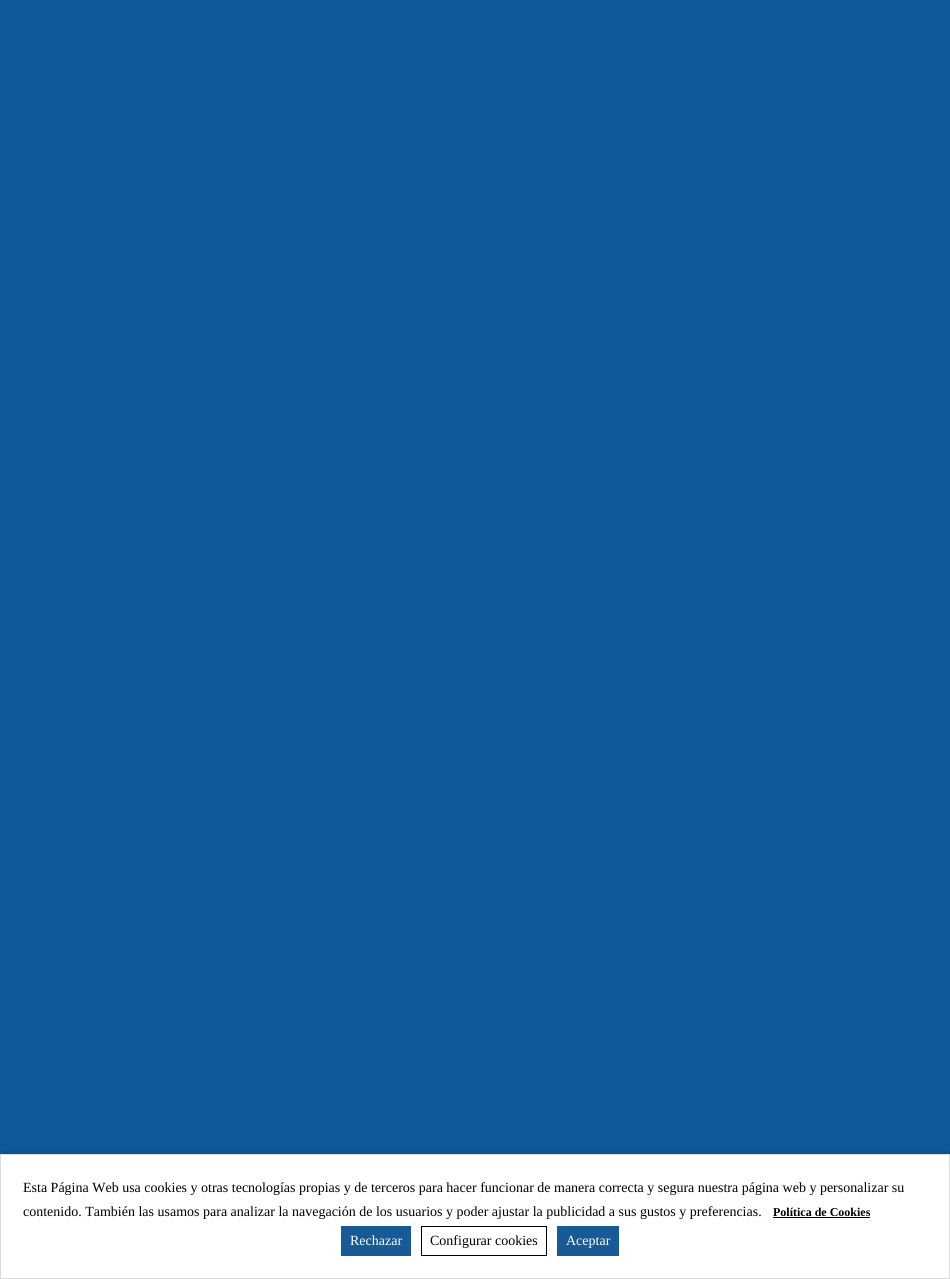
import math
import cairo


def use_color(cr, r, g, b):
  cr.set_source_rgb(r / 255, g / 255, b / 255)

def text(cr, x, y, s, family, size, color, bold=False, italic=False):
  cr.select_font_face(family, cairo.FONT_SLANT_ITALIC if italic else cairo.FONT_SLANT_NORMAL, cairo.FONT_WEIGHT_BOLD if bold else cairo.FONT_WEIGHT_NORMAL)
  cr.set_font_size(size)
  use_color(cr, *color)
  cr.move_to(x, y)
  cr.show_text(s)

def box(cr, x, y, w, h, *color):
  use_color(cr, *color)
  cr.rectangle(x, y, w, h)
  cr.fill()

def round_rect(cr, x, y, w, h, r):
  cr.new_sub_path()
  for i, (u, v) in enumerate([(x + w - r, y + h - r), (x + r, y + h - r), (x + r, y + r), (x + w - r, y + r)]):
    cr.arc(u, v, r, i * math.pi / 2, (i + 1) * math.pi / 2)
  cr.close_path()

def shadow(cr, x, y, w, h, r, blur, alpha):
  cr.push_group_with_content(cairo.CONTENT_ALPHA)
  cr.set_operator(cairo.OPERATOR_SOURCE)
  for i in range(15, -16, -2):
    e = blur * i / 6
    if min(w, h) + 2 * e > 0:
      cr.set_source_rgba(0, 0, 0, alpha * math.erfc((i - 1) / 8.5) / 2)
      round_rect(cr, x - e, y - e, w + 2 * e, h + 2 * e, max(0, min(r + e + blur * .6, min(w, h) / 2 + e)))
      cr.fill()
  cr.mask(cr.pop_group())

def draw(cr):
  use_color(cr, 15, 88, 154)
  cr.paint()
  use_color(cr, 0, 0, 0)
  shadow(cr, 0, 1159, 950, 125, 0, 5, 0.5)
  use_color(cr, 255, 255, 255)
  cr.rectangle(0.5, 1154.5, 949, 124)
  cr.fill_preserve()
  use_color(cr, 219, 219, 219)
  cr.set_line_width(1)
  cr.stroke()
  box(cr, 773, 1217, 97, 1, 0, 0, 0)
  box(cr, 341, 1226, 70, 30, 23, 90, 150)
  cr.rectangle(421.5, 1226.5, 125, 29)
  use_color(cr, 0, 0, 0)
  cr.stroke()
  box(cr, 557, 1226, 62, 30, 23, 90, 150)
  text(cr, 23, 1192, "Esta Página Web usa cookies y otras tecnologías propias y de terceros para hacer funcionar de manera correcta y segura nuestra página web y personalizar su", "Liberation Serif", 14, (0, 0, 0))
  text(cr, 23, 1216, "contenido. También las usamos para analizar la navegación de los usuarios y poder ajustar la publicidad a sus gustos y preferencias.", "Liberation Serif", 14, (0, 0, 0))
  text(cr, 773, 1216, "Política de Cookies", "Liberation Serif", 12, (0, 0, 0), bold=True)
  text(cr, 350, 1245, "Rechazar", "Liberation Serif", 14, (255, 255, 255))
  text(cr, 430, 1245, "Configurar cookies", "Liberation Serif", 14, (0, 0, 0))
  text(cr, 566, 1245, "Aceptar", "Liberation Serif", 14, (255, 255, 255))


surface = cairo.ImageSurface(cairo.FORMAT_RGB24, 950, 1279)
cr = cairo.Context(surface)
options = cairo.FontOptions()
options.set_hint_metrics(cairo.HINT_METRICS_OFF)
options.set_hint_style(cairo.HINT_STYLE_NONE)
cr.set_font_options(options)
cr.set_miter_limit(4)
draw(cr)
surface.write_to_png("out.png")
